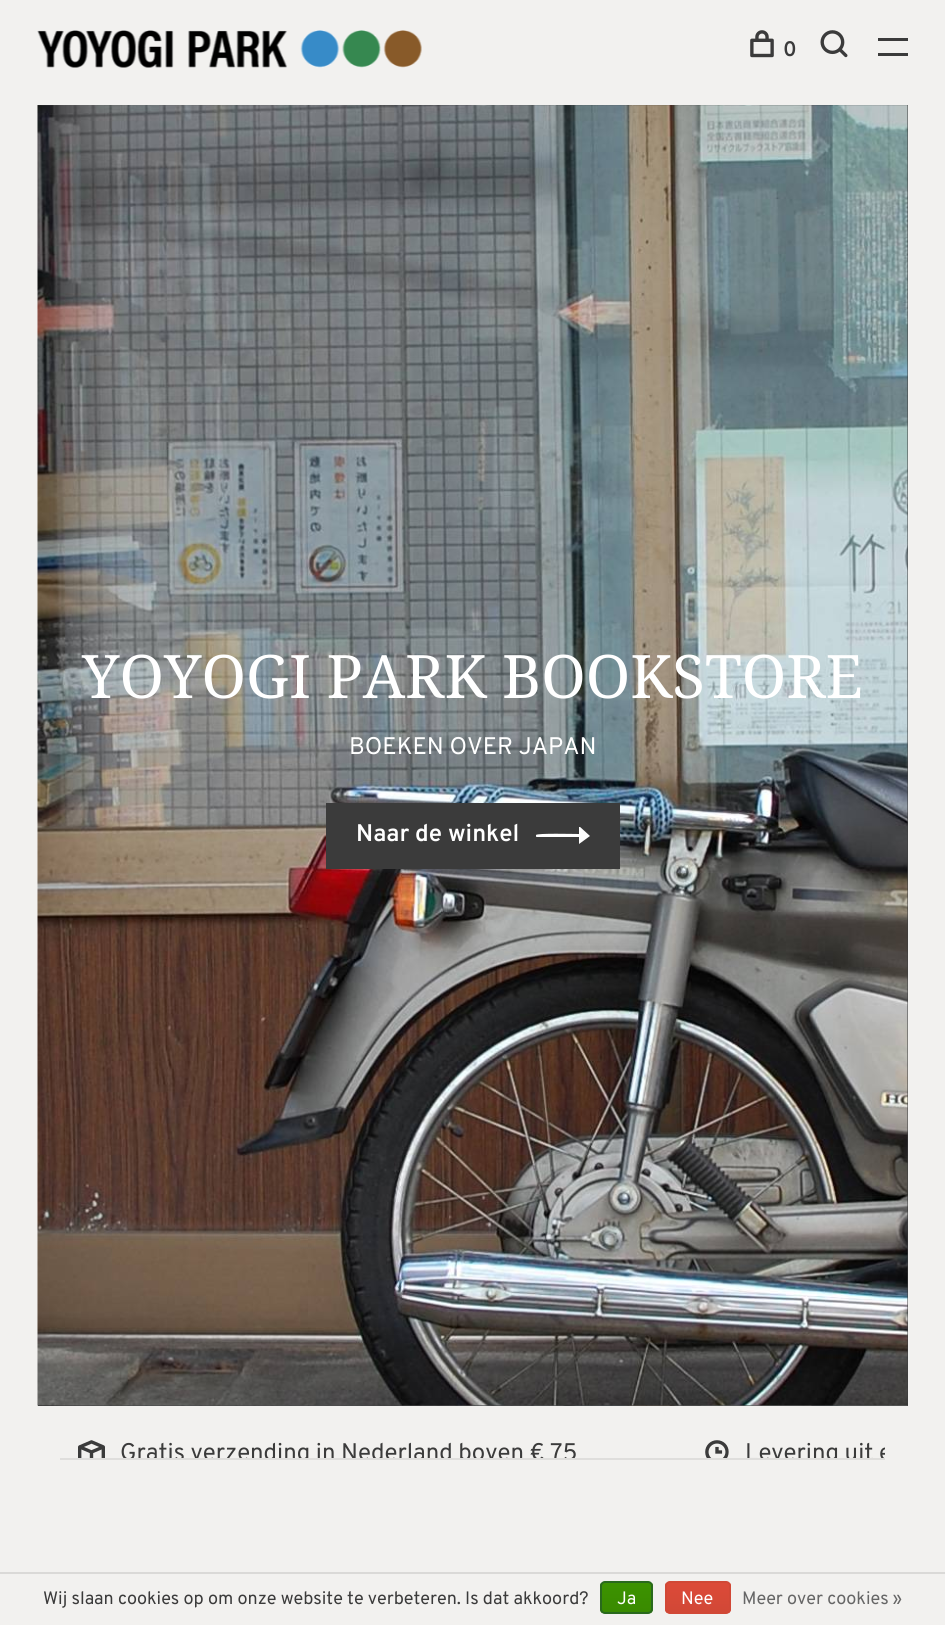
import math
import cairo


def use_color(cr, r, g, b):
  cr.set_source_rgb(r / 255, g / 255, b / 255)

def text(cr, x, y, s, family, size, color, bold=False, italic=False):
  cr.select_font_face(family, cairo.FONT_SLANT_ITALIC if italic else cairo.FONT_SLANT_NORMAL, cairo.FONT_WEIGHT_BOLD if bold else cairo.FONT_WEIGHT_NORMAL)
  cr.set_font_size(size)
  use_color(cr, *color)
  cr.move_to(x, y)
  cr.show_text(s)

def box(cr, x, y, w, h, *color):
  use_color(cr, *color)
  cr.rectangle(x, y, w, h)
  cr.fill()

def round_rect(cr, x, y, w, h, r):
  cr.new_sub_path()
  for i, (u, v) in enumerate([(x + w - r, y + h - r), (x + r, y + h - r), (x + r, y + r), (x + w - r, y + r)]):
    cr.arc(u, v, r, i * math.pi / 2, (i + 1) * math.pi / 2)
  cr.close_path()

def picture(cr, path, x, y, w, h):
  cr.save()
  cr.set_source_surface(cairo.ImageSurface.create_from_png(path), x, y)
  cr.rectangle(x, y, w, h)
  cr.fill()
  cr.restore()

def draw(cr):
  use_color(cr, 242, 241, 239)
  cr.paint()
  picture(cr, "img_01.png", 37, 30, 385, 38)
  picture(cr, "img_02.png", 750, 30, 24, 28)
  picture(cr, "img_03.png", 820, 30, 28, 28)
  box(cr, 878, 38, 30, 3, 59, 59, 59)
  box(cr, 878, 53, 30, 3, 59, 59, 59)
  box(cr, 38, 105, 870, 1301, 59, 59, 59)
  picture(cr, "img_04.png", 37, 105, 871, 1301)
  box(cr, 326, 803, 294, 66, 59, 59, 59)
  cr.save()
  cr.rectangle(536, 827, 54, 18)
  cr.clip()
  use_color(cr, 255, 255, 255)
  cr.new_path()
  cr.move_to(579, 834)
  cr.curve_to(574, 834, 537, 833, 536, 835)
  cr.curve_to(535, 836, 536, 837, 537, 837)
  cr.line_to(579, 837)
  cr.line_to(579, 844)
  cr.line_to(590, 836)
  cr.line_to(579, 826)
  cr.close_path()
  cr.fill()
  cr.restore()
  box(cr, 60, 1458, 825, 2, 223, 222, 220)
  picture(cr, "img_05.png", 78, 1440, 27, 18)
  picture(cr, "img_06.png", 705, 1440, 24, 18)
  box(cr, 0, 1572, 945, 2, 218, 217, 215)
  cr.save()
  round_rect(cr, 600, 1581, 53, 33, 5)
  cr.clip()
  gradient = cairo.LinearGradient(626, 1583, 626, 1613)
  gradient.add_color_stop_rgba(0, 0.235, 0.576, 0, 1)
  gradient.add_color_stop_rgba(1, 0.224, 0.541, 0, 1)
  cr.set_source(gradient)
  cr.rectangle(600, 1583, 53, 30)
  cr.fill()
  cr.restore()
  round_rect(cr, 601, 1582, 51, 31, 4)
  use_color(cr, 41, 105, 29)
  cr.stroke()
  cr.save()
  round_rect(cr, 665, 1581, 66, 33, 5)
  cr.clip()
  gradient = cairo.LinearGradient(698, 1583, 698, 1613)
  gradient.add_color_stop_rgba(0, 0.863, 0.29, 0.22, 1)
  gradient.add_color_stop_rgba(1, 0.82, 0.282, 0.212, 1)
  cr.set_source(gradient)
  cr.rectangle(665, 1583, 66, 30)
  cr.fill()
  cr.restore()
  round_rect(cr, 666, 1582, 64, 31, 4)
  use_color(cr, 209, 72, 54)
  cr.stroke()
  text(cr, 783, 56, "0", "Overpass SemiBold", 21, (59, 59, 59))
  text(cr, 82, 698, "YOYOGI PARK BOOKSTORE", "Droid Serif", 60, (255, 255, 255))
  text(cr, 349, 754, "BOEKEN OVER JAPAN", "Overpass", 24, (255, 255, 255))
  text(cr, 356, 841, "Naar de winkel", "Overpass SemiBold", 24, (255, 255, 255))
  cr.save()
  cr.rectangle(60, 1406, 825, 52)
  cr.clip()
  text(cr, 120, 1460, "Gratis verzending in Nederland boven € 75", "Overpass", 24, (59, 59, 59))
  text(cr, 745, 1460, "Levering uit e", "Overpass", 24, (59, 59, 59))
  cr.restore()
  text(cr, 43, 1604, "Wij slaan cookies op om onze website te verbeteren. Is dat akkoord?", "Overpass", 18, (59, 59, 59))
  text(cr, 617, 1604, "Ja", "Overpass", 18, (255, 255, 255))
  text(cr, 681, 1604, "Nee", "Overpass", 18, (255, 255, 255))
  text(cr, 742, 1604, "Meer over cookies »", "Overpass", 18, (102, 102, 102))


surface = cairo.ImageSurface(cairo.FORMAT_RGB24, 945, 1625)
cr = cairo.Context(surface)
options = cairo.FontOptions()
options.set_hint_metrics(cairo.HINT_METRICS_OFF)
options.set_hint_style(cairo.HINT_STYLE_NONE)
cr.set_font_options(options)
cr.set_miter_limit(4)
draw(cr)
surface.write_to_png("out.png")
